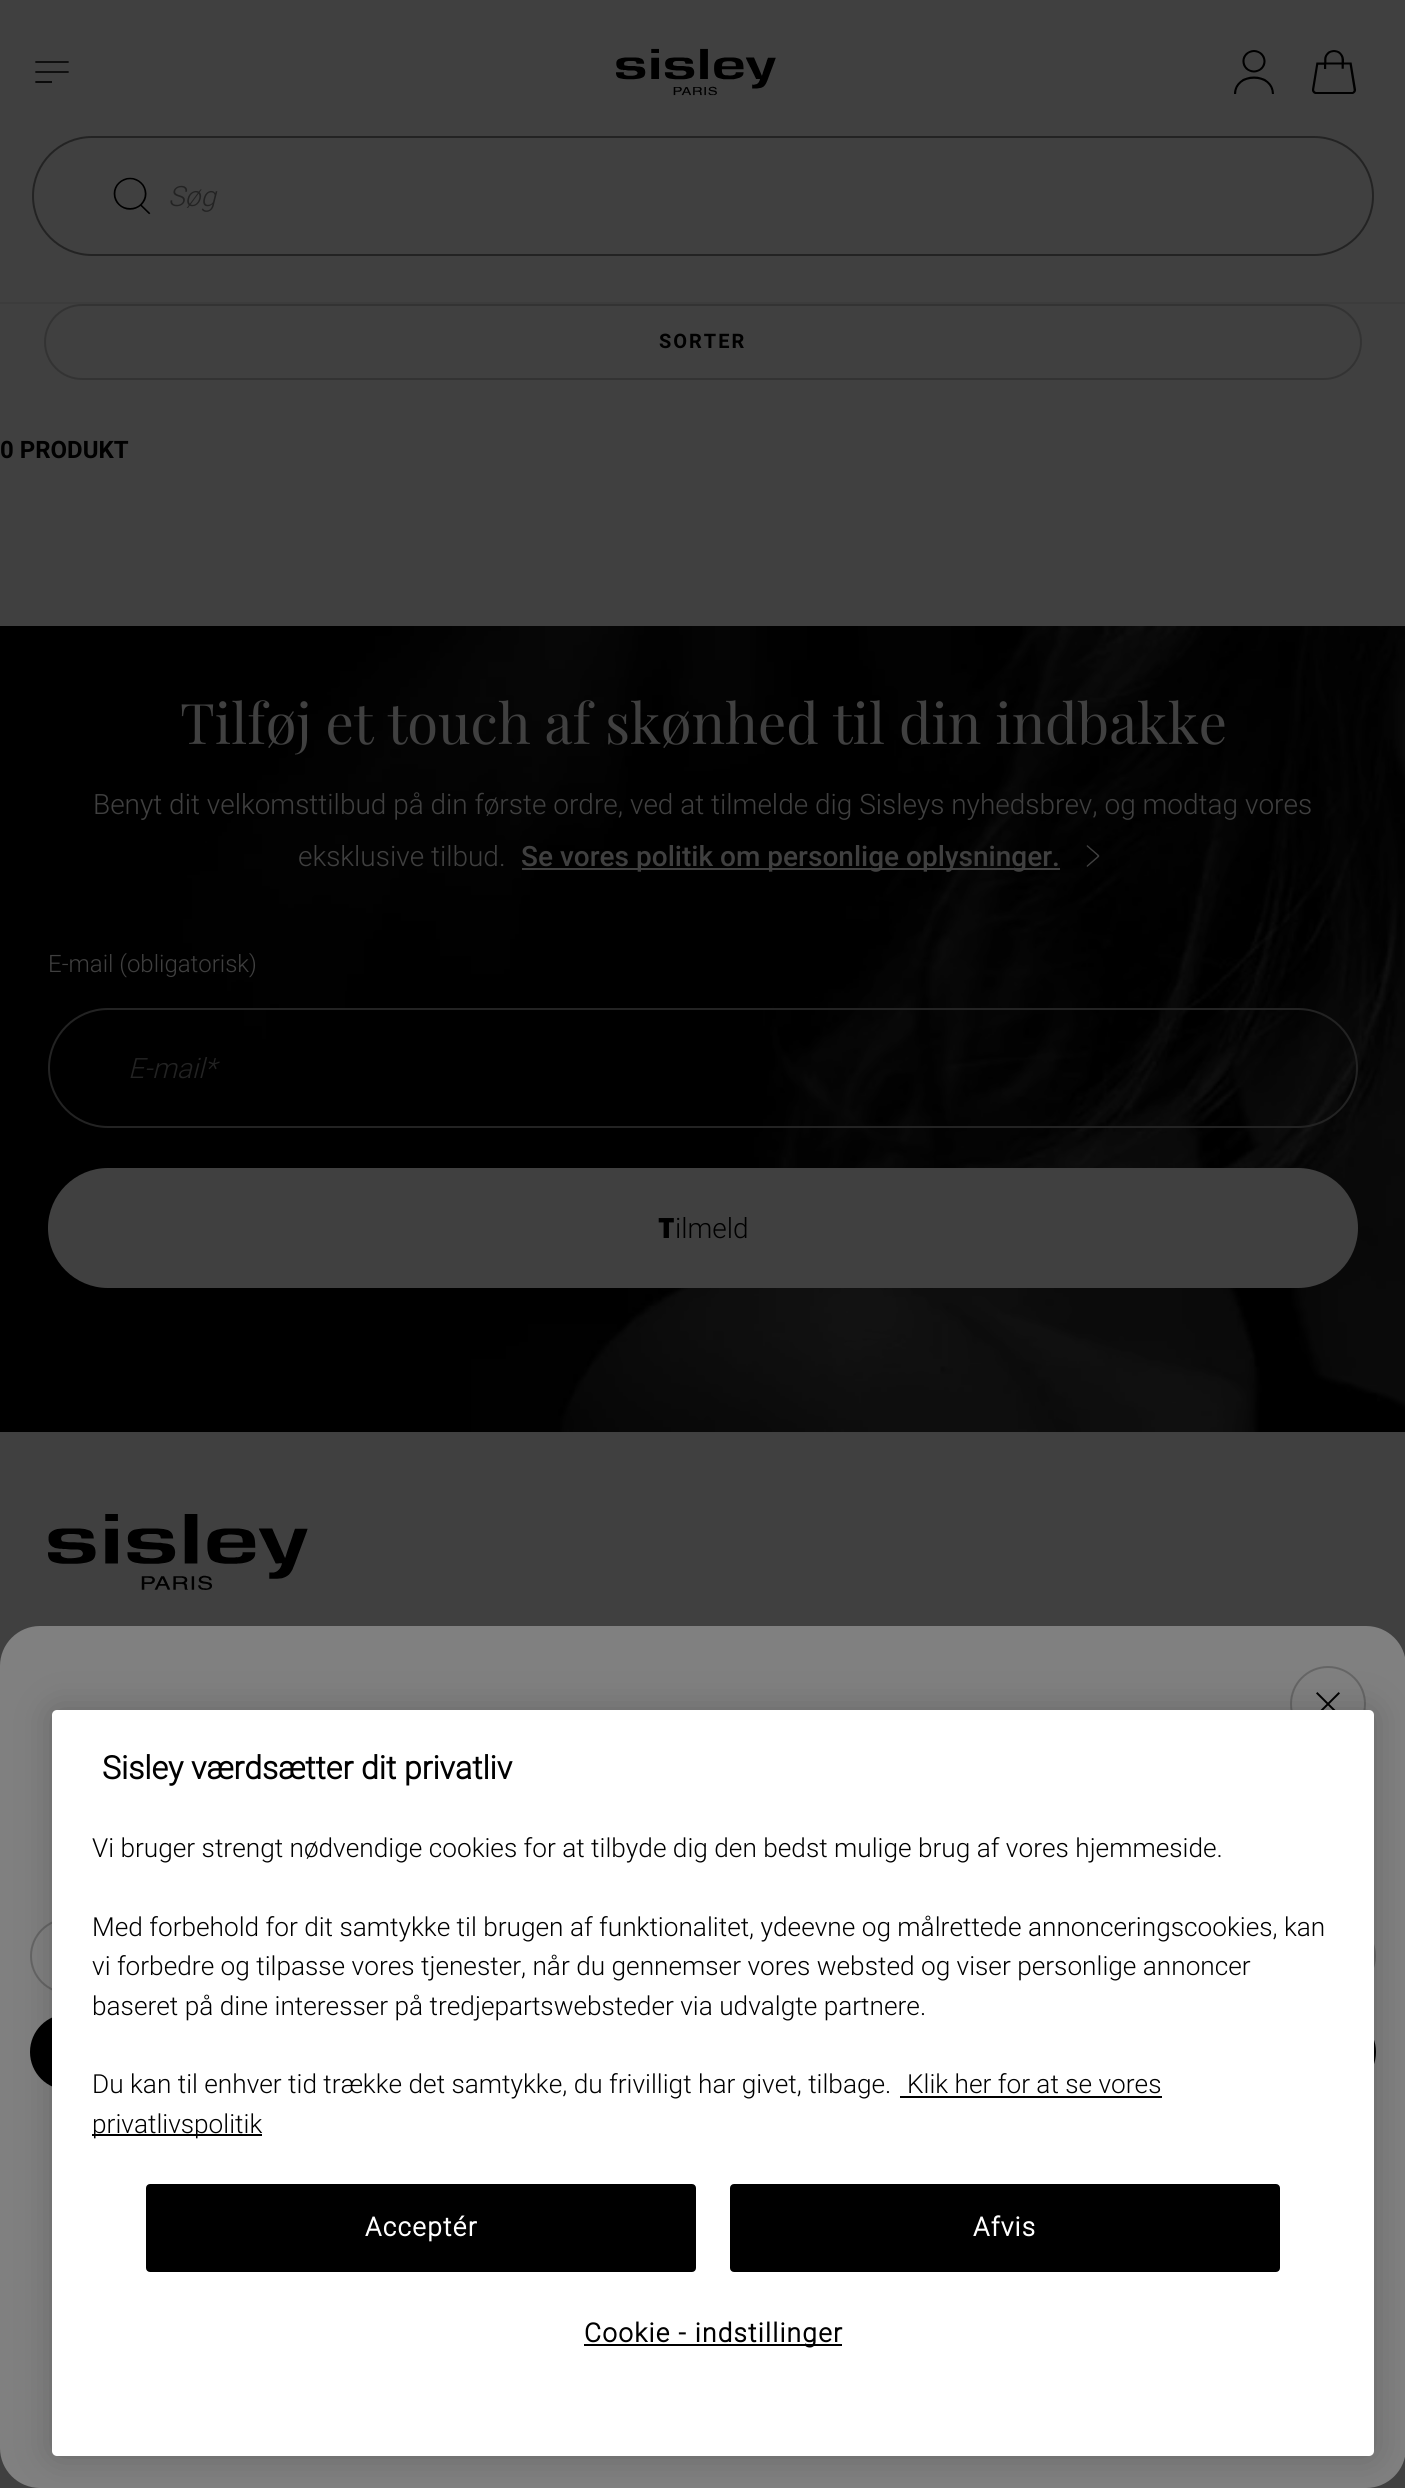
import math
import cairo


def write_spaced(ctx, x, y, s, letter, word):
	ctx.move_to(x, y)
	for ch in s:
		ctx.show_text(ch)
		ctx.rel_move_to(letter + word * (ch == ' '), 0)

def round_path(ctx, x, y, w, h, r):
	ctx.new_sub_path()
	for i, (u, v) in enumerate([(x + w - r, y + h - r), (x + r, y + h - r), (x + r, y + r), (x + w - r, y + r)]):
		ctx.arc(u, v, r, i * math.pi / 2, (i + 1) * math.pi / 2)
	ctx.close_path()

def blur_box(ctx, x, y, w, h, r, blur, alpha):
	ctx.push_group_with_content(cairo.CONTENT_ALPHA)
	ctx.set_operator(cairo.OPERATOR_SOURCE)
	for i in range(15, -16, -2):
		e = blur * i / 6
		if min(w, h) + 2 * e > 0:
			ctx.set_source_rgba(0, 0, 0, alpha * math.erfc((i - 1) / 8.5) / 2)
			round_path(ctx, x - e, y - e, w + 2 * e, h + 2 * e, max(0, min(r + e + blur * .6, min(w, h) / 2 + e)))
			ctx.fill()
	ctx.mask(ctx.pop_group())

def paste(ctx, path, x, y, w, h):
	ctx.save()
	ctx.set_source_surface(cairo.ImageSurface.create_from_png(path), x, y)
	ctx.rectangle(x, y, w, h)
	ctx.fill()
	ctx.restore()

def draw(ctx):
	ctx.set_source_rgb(0.251, 0.251, 0.251)
	ctx.paint()
	ctx.set_source_rgb(0.235, 0.235, 0.235)
	ctx.rectangle(0, 302, 1405, 2)
	ctx.fill()
	paste(ctx, 'media/1.png', 35, 61, 34, 22)
	paste(ctx, 'media/2.png', 616, 48, 160, 48)
	paste(ctx, 'media/3.png', 1234, 50, 40, 44)
	paste(ctx, 'media/4.png', 1312, 50, 44, 44)
	round_path(ctx, 33, 137, 1340, 118, 59)
	ctx.set_source_rgb(0.137, 0.137, 0.137)
	ctx.stroke()
	paste(ctx, 'media/5.png', 113, 177, 38, 38)
	ctx.select_font_face('Roboto Light', cairo.FONT_SLANT_ITALIC)
	ctx.set_font_size(28)
	ctx.move_to(168, 206)
	ctx.show_text('Søg')
	round_path(ctx, 45, 305, 1316, 74, 37)
	ctx.set_source_rgb(0.2, 0.2, 0.2)
	ctx.stroke()
	ctx.select_font_face('Roboto', cairo.FONT_SLANT_NORMAL, cairo.FONT_WEIGHT_BOLD)
	ctx.set_font_size(20)
	ctx.set_source_rgb(0, 0, 0)
	write_spaced(ctx, 659, 348, 'SORTER', 2, 0)
	ctx.set_font_size(24)
	ctx.move_to(0, 458)
	ctx.show_text('0 PRODUKT')
	ctx.rectangle(0, 626, 183, 806)
	ctx.fill()
	paste(ctx, 'media/6.png', 183, 626, 1222, 806)
	ctx.select_font_face('Playfair Display')
	ctx.set_font_size(56)
	ctx.set_source_rgb(0.251, 0.251, 0.251)
	ctx.move_to(180, 744)
	ctx.show_text('Tilføj et touch af skønhed til din indbakke')
	ctx.select_font_face('Roboto Light')
	ctx.set_font_size(28)
	ctx.move_to(93, 814)
	ctx.show_text('Benyt dit velkomsttilbud på din første ordre, ved at tilmelde dig Sisleys nyhedsbrev, og modtag vores')
	ctx.move_to(298, 866)
	ctx.show_text('eksklusive tilbud.')
	ctx.rectangle(522, 868, 538, 2)
	ctx.fill()
	ctx.select_font_face('Roboto Medium')
	ctx.move_to(521, 866)
	ctx.show_text('Se vores politik om personlige oplysninger.')
	paste(ctx, 'media/7.png', 1086, 845, 14, 22)
	ctx.select_font_face('Roboto Light')
	ctx.set_font_size(24)
	ctx.move_to(48, 972)
	ctx.show_text('E-mail (obligatorisk)')
	round_path(ctx, 49, 1009, 1308, 118, 59)
	ctx.set_source_rgb(0.137, 0.137, 0.137)
	ctx.stroke()
	ctx.select_font_face('Roboto Light', cairo.FONT_SLANT_ITALIC)
	ctx.set_font_size(28)
	ctx.move_to(128, 1078)
	ctx.show_text('E-mail*')
	ctx.set_source_rgb(0.251, 0.251, 0.251)
	round_path(ctx, 49, 1169, 1308, 118, 59)
	ctx.fill_preserve()
	ctx.stroke()
	ctx.select_font_face('Noto Sans Black')
	ctx.set_source_rgb(0, 0, 0)
	ctx.move_to(658, 1238)
	ctx.show_text('T')
	ctx.select_font_face('Roboto Light')
	ctx.move_to(675, 1238)
	ctx.show_text('ilmeld')
	paste(ctx, 'media/8.png', 48, 1514, 260, 76)
	ctx.set_source_rgb(0.502, 0.502, 0.502)
	round_path(ctx, 0, 1626, 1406, 862, 40)
	ctx.fill()
	ctx.arc(1328, 1704, 37, 0, 2 * math.pi)
	ctx.set_source_rgb(0.396, 0.396, 0.396)
	ctx.stroke()
	paste(ctx, 'media/9.png', 1316, 1692, 24, 18)
	round_path(ctx, 31, 1919, 1344, 74, 37)
	ctx.stroke()
	ctx.set_source_rgb(0, 0, 0)
	round_path(ctx, 31, 2015, 1344, 74, 37)
	ctx.fill_preserve()
	ctx.stroke()
	ctx.set_source_rgb(0, 0, 0)
	blur_box(ctx, 52, 1710, 1322, 746, 5, 18, 0.2)
	ctx.set_source_rgb(1, 1, 1)
	round_path(ctx, 52, 1710, 1322, 746, 5)
	ctx.fill()
	ctx.select_font_face('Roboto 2', cairo.FONT_SLANT_NORMAL, cairo.FONT_WEIGHT_BOLD)
	ctx.set_font_size(32)
	ctx.set_source_rgb(0, 0, 0)
	ctx.move_to(102, 1779)
	ctx.show_text('Sisley værdsætter dit privatliv')
	ctx.select_font_face('Roboto Light')
	ctx.set_font_size(26.25)
	for x, y, s in [
		(92, 1857, 'Vi bruger strengt nødvendige cookies for at tilbyde dig den bedst mulige brug af vores hjemmeside.'),
		(92, 1936, 'Med forbehold for dit samtykke til brugen af funktionalitet, ydeevne og målrettede annonceringscookies, kan'),
		(92, 1975, 'vi forbedre og tilpasse vores tjenester, når du gennemser vores websted og viser personlige annoncer'),
		(92, 2015, 'baseret på dine interesser på tredjepartswebsteder via udvalgte partnere.'),
		(92, 2093, 'Du kan til enhver tid trække det samtykke, du frivilligt har givet, tilbage.'),
		(907, 2093, 'Klik her for at se vores'),
	]:
		ctx.move_to(x, y)
		ctx.show_text(s)
	ctx.rectangle(900, 2096, 262, 2)
	ctx.fill()
	ctx.rectangle(92, 2134, 170, 2)
	ctx.fill()
	ctx.move_to(92, 2133)
	ctx.show_text('privatlivspolitik')
	round_path(ctx, 147, 2185, 548, 86, 3)
	ctx.fill_preserve()
	ctx.stroke()
	ctx.select_font_face('Roboto 2', cairo.FONT_SLANT_NORMAL, cairo.FONT_WEIGHT_BOLD)
	ctx.set_source_rgb(1, 1, 1)
	write_spaced(ctx, 365, 2236, 'Acceptér', 1.3, 0)
	ctx.set_source_rgb(0, 0, 0)
	round_path(ctx, 731, 2185, 548, 86, 3)
	ctx.fill_preserve()
	ctx.stroke()
	ctx.set_source_rgb(1, 1, 1)
	write_spaced(ctx, 973, 2236, 'Afvis', 1.3, 0)
	ctx.set_source_rgb(0, 0, 0)
	ctx.rectangle(584, 2344, 258, 2)
	ctx.fill()
	write_spaced(ctx, 584, 2342, 'Cookie - indstillinger', 1.3, 0)


surface = cairo.ImageSurface(cairo.FORMAT_RGB24, 1405, 2488)
ctx = cairo.Context(surface)
options = cairo.FontOptions()
options.set_hint_metrics(cairo.HINT_METRICS_OFF)
options.set_hint_style(cairo.HINT_STYLE_NONE)
ctx.set_font_options(options)
ctx.set_miter_limit(4)
draw(ctx)
surface.write_to_png('image.png')
